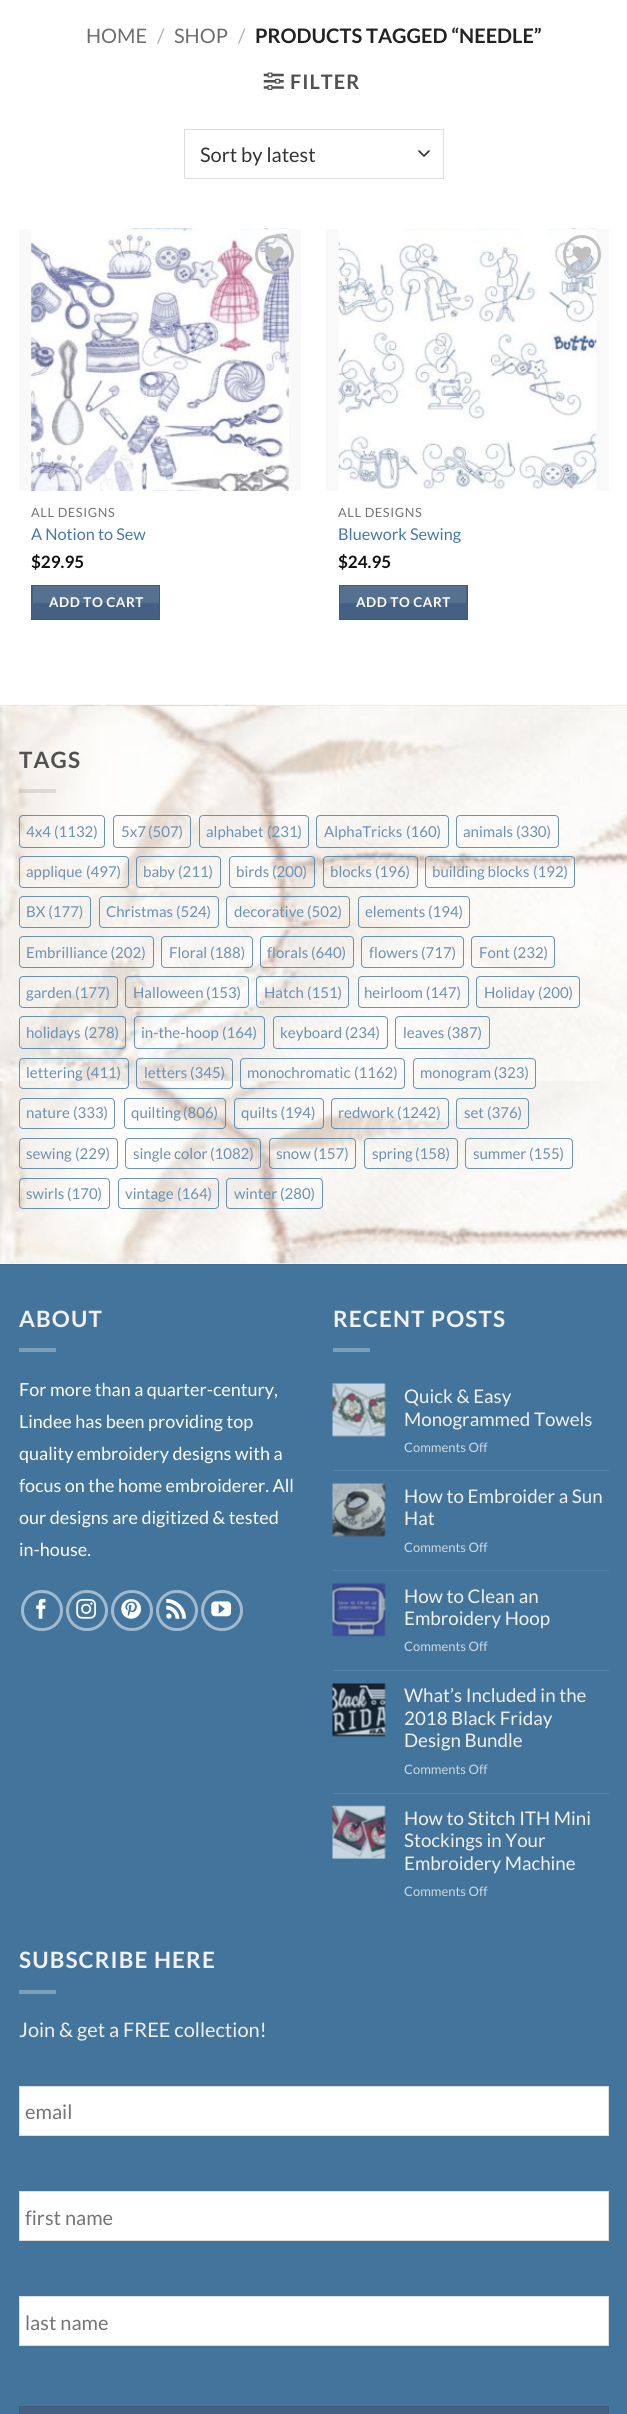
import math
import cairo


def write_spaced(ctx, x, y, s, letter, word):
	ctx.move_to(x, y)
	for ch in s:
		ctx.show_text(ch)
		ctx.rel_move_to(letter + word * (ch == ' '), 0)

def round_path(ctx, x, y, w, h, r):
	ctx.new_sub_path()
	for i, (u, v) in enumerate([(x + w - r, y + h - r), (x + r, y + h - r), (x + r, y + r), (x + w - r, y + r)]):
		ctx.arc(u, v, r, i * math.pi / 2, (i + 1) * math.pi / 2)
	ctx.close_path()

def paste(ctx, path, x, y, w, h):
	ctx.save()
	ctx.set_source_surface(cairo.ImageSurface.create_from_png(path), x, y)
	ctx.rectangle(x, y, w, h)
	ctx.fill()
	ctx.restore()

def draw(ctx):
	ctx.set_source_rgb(1, 1, 1)
	ctx.paint()
	ctx.select_font_face('Lato')
	ctx.set_font_size(20)
	ctx.set_source_rgb(0.431, 0.431, 0.431)
	ctx.move_to(86, 43)
	ctx.show_text('HOME')
	ctx.set_source_rgb(0.698, 0.698, 0.698)
	ctx.move_to(157, 43)
	ctx.show_text('/')
	ctx.set_source_rgb(0.431, 0.431, 0.431)
	ctx.move_to(174, 43)
	ctx.show_text('SHOP')
	ctx.set_source_rgb(0.698, 0.698, 0.698)
	ctx.move_to(238, 43)
	ctx.show_text('/')
	ctx.select_font_face('Lato', cairo.FONT_SLANT_NORMAL, cairo.FONT_WEIGHT_BOLD)
	ctx.set_source_rgb(0.133, 0.133, 0.133)
	ctx.move_to(255, 43)
	ctx.show_text('PRODUCTS TAGGED “NEEDLE”')
	paste(ctx, 'media/1.png', 263, 72, 21, 18)
	ctx.set_source_rgb(0.318, 0.318, 0.318)
	write_spaced(ctx, 290, 89, 'FILTER', 1, 0)
	ctx.new_path()
	ctx.move_to(419, 151)
	ctx.line_to(424, 156)
	ctx.line_to(429, 151)
	ctx.set_source_rgb(0.2, 0.2, 0.2)
	ctx.set_line_width(1.7)
	ctx.set_line_cap(cairo.LINE_CAP_ROUND)
	ctx.set_line_join(cairo.LINE_JOIN_ROUND)
	ctx.stroke()
	ctx.rectangle(184.5, 129.5, 259, 49)
	ctx.set_source_rgb(0.867, 0.867, 0.867)
	ctx.set_line_width(1)
	ctx.set_line_cap(cairo.LINE_CAP_BUTT)
	ctx.set_line_join(cairo.LINE_JOIN_MITER)
	ctx.stroke()
	ctx.select_font_face('Lato')
	ctx.set_source_rgb(0.2, 0.2, 0.2)
	ctx.move_to(200, 162)
	ctx.show_text('Sort by latest')
	ctx.set_source_rgb(0.973, 0.973, 0.973)
	ctx.rectangle(19, 229, 282, 262)
	ctx.fill()
	paste(ctx, 'media/2.png', 31, 228, 258, 263)
	ctx.arc(274.5, 254.5, 18, 0, 2 * math.pi)
	ctx.set_source_rgb(0.753, 0.753, 0.753)
	ctx.set_line_width(3)
	ctx.stroke()
	paste(ctx, 'media/3.png', 265, 246, 19, 17)
	ctx.set_font_size(12.75)
	ctx.set_source_rgb(0.455, 0.455, 0.455)
	write_spaced(ctx, 31, 517, 'ALL DESIGNS', 0.6, 0)
	ctx.set_font_size(16.25)
	ctx.set_source_rgb(0.278, 0.475, 0.655)
	ctx.move_to(31, 540)
	ctx.show_text('A Notion to Sew')
	ctx.select_font_face('Lato', cairo.FONT_SLANT_NORMAL, cairo.FONT_WEIGHT_BOLD)
	ctx.set_font_size(17)
	ctx.set_source_rgb(0.067, 0.067, 0.067)
	ctx.move_to(31, 568)
	ctx.show_text('$29.95')
	ctx.set_source_rgb(0.267, 0.376, 0.518)
	ctx.rectangle(31.5, 585.5, 128, 34)
	ctx.fill_preserve()
	ctx.set_source_rgb(0.255, 0.357, 0.49)
	ctx.set_line_width(1)
	ctx.stroke()
	ctx.set_source_rgba(1, 1, 1, 0.1)
	ctx.rectangle(33, 586, 126, 17)
	ctx.fill()
	ctx.set_font_size(13.5)
	ctx.set_source_rgb(1, 1, 1)
	write_spaced(ctx, 49, 607, 'ADD TO CART', 0.5, 0)
	ctx.set_source_rgb(0.973, 0.973, 0.973)
	ctx.rectangle(326, 229, 283, 262)
	ctx.fill()
	paste(ctx, 'media/4.png', 338, 228, 259, 263)
	round_path(ctx, 564.5, 236.5, 35, 36, 17.5)
	ctx.set_source_rgb(0.753, 0.753, 0.753)
	ctx.set_line_width(3)
	ctx.stroke()
	paste(ctx, 'media/5.png', 572, 246, 20, 17)
	ctx.select_font_face('Lato')
	ctx.set_font_size(12.75)
	ctx.set_source_rgb(0.455, 0.455, 0.455)
	write_spaced(ctx, 338, 517, 'ALL DESIGNS', 0.6, 0)
	ctx.set_font_size(16.25)
	ctx.set_source_rgb(0.278, 0.475, 0.655)
	ctx.move_to(338, 540)
	ctx.show_text('Bluework Sewing')
	ctx.select_font_face('Lato', cairo.FONT_SLANT_NORMAL, cairo.FONT_WEIGHT_BOLD)
	ctx.set_font_size(17)
	ctx.set_source_rgb(0.067, 0.067, 0.067)
	ctx.move_to(338, 568)
	ctx.show_text('$24.95')
	ctx.set_source_rgb(0.267, 0.376, 0.518)
	ctx.rectangle(339.5, 585.5, 128, 34)
	ctx.fill_preserve()
	ctx.set_source_rgb(0.255, 0.357, 0.49)
	ctx.set_line_width(1)
	ctx.stroke()
	ctx.set_source_rgba(1, 1, 1, 0.1)
	ctx.rectangle(340, 586, 126, 17)
	ctx.fill()
	ctx.set_font_size(13.5)
	ctx.set_source_rgb(1, 1, 1)
	write_spaced(ctx, 356, 607, 'ADD TO CART', 0.5, 0)
	paste(ctx, 'media/6.png', 0, 704, 627, 560)
	ctx.set_source_rgba(0, 0, 0, 0.05)
	ctx.rectangle(0, 705, 627, 1)
	ctx.fill()
	ctx.set_font_size(22.5)
	ctx.set_source_rgb(0.318, 0.318, 0.318)
	write_spaced(ctx, 19, 768, 'TAGS', 1.1, 0)
	ctx.set_source_rgba(0, 0, 0, 0.1)
	ctx.rectangle(19, 789, 37, 4)
	ctx.fill()
	round_path(ctx, 19.5, 815.5, 85, 32, 3.5)
	ctx.set_source_rgba(0.278, 0.475, 0.655, 0.8)
	ctx.stroke()
	ctx.select_font_face('Lato')
	ctx.set_font_size(15)
	ctx.set_source_rgb(0.416, 0.569, 0.71)
	ctx.move_to(26, 837)
	ctx.show_text('4x4')
	ctx.move_to(54, 837)
	ctx.show_text('(1132)')
	round_path(ctx, 113.5, 815.5, 77, 32, 3.5)
	ctx.set_source_rgba(0.278, 0.475, 0.655, 0.8)
	ctx.stroke()
	ctx.set_source_rgb(0.416, 0.569, 0.71)
	ctx.move_to(121, 837)
	ctx.show_text('5x7')
	ctx.move_to(148, 837)
	ctx.show_text('(507)')
	round_path(ctx, 199.5, 815.5, 109, 32, 3.5)
	ctx.set_source_rgba(0.278, 0.475, 0.655, 0.8)
	ctx.stroke()
	ctx.set_source_rgb(0.416, 0.569, 0.71)
	ctx.move_to(206, 837)
	ctx.show_text('alphabet')
	ctx.move_to(267, 837)
	ctx.show_text('(231)')
	round_path(ctx, 316.5, 815.5, 132, 32, 3.5)
	ctx.set_source_rgba(0.278, 0.475, 0.655, 0.8)
	ctx.stroke()
	ctx.set_source_rgb(0.416, 0.569, 0.71)
	ctx.move_to(324, 837)
	ctx.show_text('AlphaTricks')
	ctx.move_to(406, 837)
	ctx.show_text('(160)')
	round_path(ctx, 456.5, 815.5, 102, 32, 3.5)
	ctx.set_source_rgba(0.278, 0.475, 0.655, 0.8)
	ctx.stroke()
	ctx.set_source_rgb(0.416, 0.569, 0.71)
	ctx.move_to(463, 837)
	ctx.show_text('animals (330)')
	round_path(ctx, 19.5, 856.5, 109, 31, 3.5)
	ctx.set_source_rgba(0.278, 0.475, 0.655, 0.8)
	ctx.stroke()
	ctx.set_source_rgb(0.416, 0.569, 0.71)
	ctx.move_to(26, 877)
	ctx.show_text('applique')
	ctx.move_to(86, 877)
	ctx.show_text('(497)')
	round_path(ctx, 136.5, 856.5, 84, 31, 3.5)
	ctx.set_source_rgba(0.278, 0.475, 0.655, 0.8)
	ctx.stroke()
	ctx.set_source_rgb(0.416, 0.569, 0.71)
	ctx.move_to(143, 877)
	ctx.show_text('baby')
	ctx.move_to(178, 877)
	ctx.show_text('(211)')
	round_path(ctx, 229.5, 856.5, 85, 31, 3.5)
	ctx.set_source_rgba(0.278, 0.475, 0.655, 0.8)
	ctx.stroke()
	ctx.set_source_rgb(0.416, 0.569, 0.71)
	ctx.move_to(236, 877)
	ctx.show_text('birds')
	ctx.move_to(272, 877)
	ctx.show_text('(200)')
	round_path(ctx, 323.5, 856.5, 94, 31, 3.5)
	ctx.set_source_rgba(0.278, 0.475, 0.655, 0.8)
	ctx.stroke()
	ctx.set_source_rgb(0.416, 0.569, 0.71)
	ctx.move_to(330, 877)
	ctx.show_text('blocks')
	ctx.move_to(375, 877)
	ctx.show_text('(196)')
	round_path(ctx, 425.5, 856.5, 149, 31, 3.5)
	ctx.set_source_rgba(0.278, 0.475, 0.655, 0.8)
	ctx.stroke()
	ctx.set_source_rgb(0.416, 0.569, 0.71)
	ctx.move_to(432, 877)
	ctx.show_text('building blocks')
	ctx.move_to(533, 877)
	ctx.show_text('(192)')
	round_path(ctx, 19.5, 896.5, 71, 31, 3.5)
	ctx.set_source_rgba(0.278, 0.475, 0.655, 0.8)
	ctx.stroke()
	ctx.set_source_rgb(0.416, 0.569, 0.71)
	ctx.move_to(26, 917)
	ctx.show_text('BX (177)')
	round_path(ctx, 99.5, 896.5, 119, 31, 3.5)
	ctx.set_source_rgba(0.278, 0.475, 0.655, 0.8)
	ctx.stroke()
	ctx.set_source_rgb(0.416, 0.569, 0.71)
	ctx.move_to(106, 917)
	ctx.show_text('Christmas')
	ctx.move_to(176, 917)
	ctx.show_text('(524)')
	round_path(ctx, 226.5, 896.5, 123, 31, 3.5)
	ctx.set_source_rgba(0.278, 0.475, 0.655, 0.8)
	ctx.stroke()
	ctx.set_source_rgb(0.416, 0.569, 0.71)
	ctx.move_to(234, 917)
	ctx.show_text('decorative')
	ctx.move_to(307, 917)
	ctx.show_text('(502)')
	round_path(ctx, 358.5, 896.5, 111, 31, 3.5)
	ctx.set_source_rgba(0.278, 0.475, 0.655, 0.8)
	ctx.stroke()
	ctx.set_source_rgb(0.416, 0.569, 0.71)
	ctx.move_to(365, 917)
	ctx.show_text('elements')
	ctx.move_to(428, 917)
	ctx.show_text('(194)')
	round_path(ctx, 19.5, 936.5, 134, 31, 3.5)
	ctx.set_source_rgba(0.278, 0.475, 0.655, 0.8)
	ctx.stroke()
	ctx.set_source_rgb(0.416, 0.569, 0.71)
	ctx.move_to(26, 958)
	ctx.show_text('Embrilliance (202)')
	round_path(ctx, 161.5, 936.5, 91, 31, 3.5)
	ctx.set_source_rgba(0.278, 0.475, 0.655, 0.8)
	ctx.stroke()
	ctx.set_source_rgb(0.416, 0.569, 0.71)
	ctx.move_to(169, 958)
	ctx.show_text('Floral (188)')
	round_path(ctx, 260.5, 936.5, 93, 31, 3.5)
	ctx.set_source_rgba(0.278, 0.475, 0.655, 0.8)
	ctx.stroke()
	ctx.set_source_rgb(0.416, 0.569, 0.71)
	ctx.move_to(267, 958)
	ctx.show_text('florals')
	ctx.move_to(311, 958)
	ctx.show_text('(640)')
	round_path(ctx, 361.5, 936.5, 102, 31, 3.5)
	ctx.set_source_rgba(0.278, 0.475, 0.655, 0.8)
	ctx.stroke()
	ctx.set_source_rgb(0.416, 0.569, 0.71)
	ctx.move_to(369, 958)
	ctx.show_text('flowers')
	ctx.move_to(421, 958)
	ctx.show_text('(717)')
	round_path(ctx, 471.5, 936.5, 83, 31, 3.5)
	ctx.set_source_rgba(0.278, 0.475, 0.655, 0.8)
	ctx.stroke()
	ctx.set_source_rgb(0.416, 0.569, 0.71)
	ctx.move_to(479, 958)
	ctx.show_text('Font')
	ctx.move_to(513, 958)
	ctx.show_text('(232)')
	round_path(ctx, 19.5, 976.5, 98, 31, 3.5)
	ctx.set_source_rgba(0.278, 0.475, 0.655, 0.8)
	ctx.stroke()
	ctx.set_source_rgb(0.416, 0.569, 0.71)
	ctx.move_to(26, 998)
	ctx.show_text('garden')
	ctx.move_to(75, 998)
	ctx.show_text('(177)')
	round_path(ctx, 125.5, 976.5, 123, 31, 3.5)
	ctx.set_source_rgba(0.278, 0.475, 0.655, 0.8)
	ctx.stroke()
	ctx.set_source_rgb(0.416, 0.569, 0.71)
	ctx.move_to(133, 998)
	ctx.show_text('Halloween')
	ctx.move_to(206, 998)
	ctx.show_text('(153)')
	round_path(ctx, 256.5, 976.5, 92, 31, 3.5)
	ctx.set_source_rgba(0.278, 0.475, 0.655, 0.8)
	ctx.stroke()
	ctx.set_source_rgb(0.416, 0.569, 0.71)
	ctx.move_to(264, 998)
	ctx.show_text('Hatch')
	ctx.move_to(307, 998)
	ctx.show_text('(151)')
	round_path(ctx, 358.5, 976.5, 110, 31, 3.5)
	ctx.set_source_rgba(0.278, 0.475, 0.655, 0.8)
	ctx.stroke()
	ctx.set_source_rgb(0.416, 0.569, 0.71)
	ctx.move_to(364, 998)
	ctx.show_text('heirloom (147)')
	round_path(ctx, 476.5, 976.5, 103, 31, 3.5)
	ctx.set_source_rgba(0.278, 0.475, 0.655, 0.8)
	ctx.stroke()
	ctx.set_source_rgb(0.416, 0.569, 0.71)
	ctx.move_to(484, 998)
	ctx.show_text('Holiday')
	ctx.move_to(538, 998)
	ctx.show_text('(200)')
	round_path(ctx, 19.5, 1016.5, 106, 32, 3.5)
	ctx.set_source_rgba(0.278, 0.475, 0.655, 0.8)
	ctx.stroke()
	ctx.set_source_rgb(0.416, 0.569, 0.71)
	ctx.move_to(26, 1038)
	ctx.show_text('holidays')
	ctx.move_to(84, 1038)
	ctx.show_text('(278)')
	round_path(ctx, 134.5, 1016.5, 130, 32, 3.5)
	ctx.set_source_rgba(0.278, 0.475, 0.655, 0.8)
	ctx.stroke()
	ctx.set_source_rgb(0.416, 0.569, 0.71)
	ctx.move_to(141, 1038)
	ctx.show_text('in-the-hoop')
	ctx.move_to(222, 1038)
	ctx.show_text('(164)')
	round_path(ctx, 273.5, 1016.5, 114, 32, 3.5)
	ctx.set_source_rgba(0.278, 0.475, 0.655, 0.8)
	ctx.stroke()
	ctx.set_source_rgb(0.416, 0.569, 0.71)
	ctx.move_to(280, 1038)
	ctx.show_text('keyboard')
	ctx.move_to(345, 1038)
	ctx.show_text('(234)')
	round_path(ctx, 395.5, 1016.5, 94, 32, 3.5)
	ctx.set_source_rgba(0.278, 0.475, 0.655, 0.8)
	ctx.stroke()
	ctx.set_source_rgb(0.416, 0.569, 0.71)
	ctx.move_to(403, 1038)
	ctx.show_text('leaves')
	ctx.move_to(447, 1038)
	ctx.show_text('(387)')
	round_path(ctx, 19.5, 1058.5, 109, 30, 3.5)
	ctx.set_source_rgba(0.278, 0.475, 0.655, 0.8)
	ctx.stroke()
	ctx.set_source_rgb(0.416, 0.569, 0.71)
	ctx.move_to(26, 1078)
	ctx.show_text('lettering')
	ctx.move_to(86, 1078)
	ctx.show_text('(411)')
	round_path(ctx, 136.5, 1058.5, 96, 30, 3.5)
	ctx.set_source_rgba(0.278, 0.475, 0.655, 0.8)
	ctx.stroke()
	ctx.set_source_rgb(0.416, 0.569, 0.71)
	ctx.move_to(144, 1078)
	ctx.show_text('letters')
	ctx.move_to(190, 1078)
	ctx.show_text('(345)')
	round_path(ctx, 240.5, 1058.5, 164, 30, 3.5)
	ctx.set_source_rgba(0.278, 0.475, 0.655, 0.8)
	ctx.stroke()
	ctx.set_source_rgb(0.416, 0.569, 0.71)
	ctx.move_to(247, 1078)
	ctx.show_text('monochromatic')
	ctx.move_to(354, 1078)
	ctx.show_text('(1162)')
	round_path(ctx, 413.5, 1058.5, 122, 30, 3.5)
	ctx.set_source_rgba(0.278, 0.475, 0.655, 0.8)
	ctx.stroke()
	ctx.set_source_rgb(0.416, 0.569, 0.71)
	ctx.move_to(420, 1078)
	ctx.show_text('monogram (323)')
	round_path(ctx, 19.5, 1098.5, 95, 30, 3.5)
	ctx.set_source_rgba(0.278, 0.475, 0.655, 0.8)
	ctx.stroke()
	ctx.set_source_rgb(0.416, 0.569, 0.71)
	ctx.move_to(26, 1118)
	ctx.show_text('nature')
	ctx.move_to(73, 1118)
	ctx.show_text('(333)')
	round_path(ctx, 124.5, 1098.5, 101, 30, 3.5)
	ctx.set_source_rgba(0.278, 0.475, 0.655, 0.8)
	ctx.stroke()
	ctx.set_source_rgb(0.416, 0.569, 0.71)
	ctx.move_to(131, 1118)
	ctx.show_text('quilting')
	ctx.move_to(183, 1118)
	ctx.show_text('(806)')
	round_path(ctx, 234.5, 1098.5, 89, 30, 3.5)
	ctx.set_source_rgba(0.278, 0.475, 0.655, 0.8)
	ctx.stroke()
	ctx.set_source_rgb(0.416, 0.569, 0.71)
	ctx.move_to(241, 1118)
	ctx.show_text('quilts (194)')
	round_path(ctx, 331.5, 1098.5, 117, 30, 3.5)
	ctx.set_source_rgba(0.278, 0.475, 0.655, 0.8)
	ctx.stroke()
	ctx.set_source_rgb(0.416, 0.569, 0.71)
	ctx.move_to(338, 1118)
	ctx.show_text('redwork')
	ctx.move_to(397, 1118)
	ctx.show_text('(1242)')
	round_path(ctx, 456.5, 1098.5, 72, 30, 3.5)
	ctx.set_source_rgba(0.278, 0.475, 0.655, 0.8)
	ctx.stroke()
	ctx.set_source_rgb(0.416, 0.569, 0.71)
	ctx.move_to(464, 1118)
	ctx.show_text('set')
	ctx.move_to(487, 1118)
	ctx.show_text('(376)')
	round_path(ctx, 19.5, 1138.5, 98, 30, 3.5)
	ctx.set_source_rgba(0.278, 0.475, 0.655, 0.8)
	ctx.stroke()
	ctx.set_source_rgb(0.416, 0.569, 0.71)
	ctx.move_to(26, 1159)
	ctx.show_text('sewing')
	ctx.move_to(75, 1159)
	ctx.show_text('(229)')
	round_path(ctx, 125.5, 1138.5, 135, 30, 3.5)
	ctx.set_source_rgba(0.278, 0.475, 0.655, 0.8)
	ctx.stroke()
	ctx.set_source_rgb(0.416, 0.569, 0.71)
	ctx.move_to(133, 1159)
	ctx.show_text('single color')
	ctx.move_to(210, 1159)
	ctx.show_text('(1082)')
	round_path(ctx, 269.5, 1138.5, 86, 30, 3.5)
	ctx.set_source_rgba(0.278, 0.475, 0.655, 0.8)
	ctx.stroke()
	ctx.set_source_rgb(0.416, 0.569, 0.71)
	ctx.move_to(276, 1159)
	ctx.show_text('snow (157)')
	round_path(ctx, 364.5, 1138.5, 93, 30, 3.5)
	ctx.set_source_rgba(0.278, 0.475, 0.655, 0.8)
	ctx.stroke()
	ctx.set_source_rgb(0.416, 0.569, 0.71)
	ctx.move_to(372, 1159)
	ctx.show_text('spring')
	ctx.move_to(415, 1159)
	ctx.show_text('(158)')
	round_path(ctx, 465.5, 1138.5, 107, 30, 3.5)
	ctx.set_source_rgba(0.278, 0.475, 0.655, 0.8)
	ctx.stroke()
	ctx.set_source_rgb(0.416, 0.569, 0.71)
	ctx.move_to(473, 1159)
	ctx.show_text('summer')
	ctx.move_to(529, 1159)
	ctx.show_text('(155)')
	round_path(ctx, 19.5, 1178.5, 90, 30, 3.5)
	ctx.set_source_rgba(0.278, 0.475, 0.655, 0.8)
	ctx.stroke()
	ctx.set_source_rgb(0.416, 0.569, 0.71)
	ctx.move_to(26, 1199)
	ctx.show_text('swirls')
	ctx.move_to(67, 1199)
	ctx.show_text('(170)')
	round_path(ctx, 118.5, 1178.5, 100, 30, 3.5)
	ctx.set_source_rgba(0.278, 0.475, 0.655, 0.8)
	ctx.stroke()
	ctx.set_source_rgb(0.416, 0.569, 0.71)
	ctx.move_to(125, 1199)
	ctx.show_text('vintage')
	ctx.move_to(177, 1199)
	ctx.show_text('(164)')
	round_path(ctx, 226.5, 1178.5, 96, 30, 3.5)
	ctx.set_source_rgba(0.278, 0.475, 0.655, 0.8)
	ctx.stroke()
	ctx.set_source_rgb(0.416, 0.569, 0.71)
	ctx.move_to(234, 1199)
	ctx.show_text('winter')
	ctx.move_to(280, 1199)
	ctx.show_text('(280)')
	ctx.set_source_rgb(0.263, 0.455, 0.612)
	ctx.rectangle(0, 1265, 627, 1149)
	ctx.fill()
	ctx.set_source_rgb(0.251, 0.431, 0.58)
	ctx.rectangle(0, 1264, 627, 1)
	ctx.fill()
	ctx.select_font_face('Lato', cairo.FONT_SLANT_NORMAL, cairo.FONT_WEIGHT_BOLD)
	ctx.set_font_size(22.5)
	ctx.set_source_rgb(0.945, 0.945, 0.945)
	write_spaced(ctx, 19, 1327, 'ABOUT', 1.1, 0)
	ctx.set_source_rgb(0.482, 0.62, 0.729)
	ctx.rectangle(19, 1348, 37, 4)
	ctx.fill()
	ctx.select_font_face('Lato')
	ctx.set_font_size(18)
	ctx.set_source_rgb(1, 1, 1)
	for x, y, s in [
		(19, 1396, 'For more than a quarter-century,'),
		(19, 1428, 'Lindee has been providing top'),
		(19, 1460, 'quality embroidery designs with a'),
		(19, 1492, 'focus on the home embroiderer. All'),
		(19, 1524, 'our designs are digitized & tested'),
		(19, 1556, 'in-house.'),
	]:
		ctx.move_to(x, y)
		ctx.show_text(s)
	round_path(ctx, 22.5, 1591.5, 39, 38, 19)
	ctx.set_source_rgb(0.631, 0.729, 0.808)
	ctx.set_line_width(3)
	ctx.stroke()
	paste(ctx, 'media/7.png', 36, 1598, 10, 21)
	round_path(ctx, 67.5, 1591.5, 39, 38, 19)
	ctx.stroke()
	paste(ctx, 'media/8.png', 76, 1598, 20, 21)
	round_path(ctx, 112.5, 1591.5, 39, 38, 19)
	ctx.stroke()
	paste(ctx, 'media/9.png', 121, 1598, 20, 21)
	round_path(ctx, 157.5, 1591.5, 39, 38, 19)
	ctx.stroke()
	paste(ctx, 'media/10.png', 166, 1598, 20, 21)
	round_path(ctx, 202.5, 1591.5, 39, 38, 19)
	ctx.stroke()
	paste(ctx, 'media/11.png', 211, 1601, 21, 16)
	ctx.select_font_face('Lato', cairo.FONT_SLANT_NORMAL, cairo.FONT_WEIGHT_BOLD)
	ctx.set_font_size(22.5)
	ctx.set_source_rgb(0.945, 0.945, 0.945)
	write_spaced(ctx, 333, 1327, 'RECENT POSTS', 1.1, 0)
	ctx.set_source_rgb(0.482, 0.62, 0.729)
	ctx.rectangle(333, 1348, 37, 4)
	ctx.fill()
	paste(ctx, 'media/12.png', 332, 1383, 54, 54)
	ctx.select_font_face('Lato')
	ctx.set_font_size(18.75)
	ctx.set_source_rgb(0.945, 0.945, 0.945)
	ctx.move_to(404, 1403)
	ctx.show_text('Quick & Easy')
	ctx.move_to(404, 1426)
	ctx.show_text('Monogrammed Towels')
	ctx.set_font_size(13)
	ctx.set_source_rgb(0.808, 0.847, 0.878)
	ctx.move_to(404, 1452)
	ctx.show_text('Comments Off')
	ctx.set_source_rgb(0.322, 0.498, 0.643)
	ctx.rectangle(333, 1470, 276, 1)
	ctx.fill()
	paste(ctx, 'media/13.png', 332, 1483, 54, 54)
	ctx.set_font_size(18.75)
	ctx.set_source_rgb(0.945, 0.945, 0.945)
	ctx.move_to(404, 1503)
	ctx.show_text('How to Embroider a Sun')
	ctx.move_to(404, 1525)
	ctx.show_text('Hat')
	ctx.set_font_size(13)
	ctx.set_source_rgb(0.808, 0.847, 0.878)
	ctx.move_to(404, 1552)
	ctx.show_text('Comments Off')
	ctx.set_source_rgb(0.322, 0.498, 0.643)
	ctx.rectangle(333, 1570, 276, 1)
	ctx.fill()
	paste(ctx, 'media/14.png', 332, 1583, 54, 54)
	ctx.set_font_size(18.75)
	ctx.set_source_rgb(0.945, 0.945, 0.945)
	ctx.move_to(404, 1603)
	ctx.show_text('How to Clean an')
	ctx.move_to(404, 1625)
	ctx.show_text('Embroidery Hoop')
	ctx.set_font_size(13)
	ctx.set_source_rgb(0.808, 0.847, 0.878)
	ctx.move_to(404, 1651)
	ctx.show_text('Comments Off')
	ctx.set_source_rgb(0.322, 0.498, 0.643)
	ctx.rectangle(333, 1670, 276, 1)
	ctx.fill()
	paste(ctx, 'media/15.png', 332, 1683, 54, 54)
	ctx.set_font_size(18.75)
	ctx.set_source_rgb(0.945, 0.945, 0.945)
	for x, y, s in [
		(404, 1702, 'What’s Included in the'),
		(404, 1725, '2018 Black Friday'),
		(404, 1747, 'Design Bundle'),
	]:
		ctx.move_to(x, y)
		ctx.show_text(s)
	ctx.set_font_size(13)
	ctx.set_source_rgb(0.808, 0.847, 0.878)
	ctx.move_to(404, 1774)
	ctx.show_text('Comments Off')
	ctx.set_source_rgb(0.322, 0.498, 0.643)
	ctx.rectangle(333, 1793, 276, 1)
	ctx.fill()
	paste(ctx, 'media/16.png', 332, 1805, 54, 54)
	ctx.set_font_size(18.75)
	ctx.set_source_rgb(0.945, 0.945, 0.945)
	for x, y, s in [
		(404, 1825, 'How to Stitch ITH Mini'),
		(404, 1847, 'Stockings in Your'),
		(404, 1870, 'Embroidery Machine'),
	]:
		ctx.move_to(x, y)
		ctx.show_text(s)
	ctx.set_font_size(13)
	ctx.set_source_rgb(0.808, 0.847, 0.878)
	ctx.move_to(404, 1896)
	ctx.show_text('Comments Off')
	ctx.select_font_face('Lato', cairo.FONT_SLANT_NORMAL, cairo.FONT_WEIGHT_BOLD)
	ctx.set_font_size(22.5)
	ctx.set_source_rgb(0.945, 0.945, 0.945)
	write_spaced(ctx, 19, 1968, 'SUBSCRIBE HERE', 1.1, 0)
	ctx.set_source_rgb(0.482, 0.62, 0.729)
	ctx.rectangle(19, 1990, 37, 4)
	ctx.fill()
	ctx.select_font_face('Lato')
	ctx.set_font_size(20)
	ctx.set_source_rgb(0.945, 0.945, 0.945)
	ctx.move_to(19, 2037)
	ctx.show_text('Join & get a FREE collection!')
	ctx.set_source_rgb(1, 1, 1)
	ctx.rectangle(19.5, 2086.5, 589, 49)
	ctx.fill_preserve()
	ctx.set_source_rgb(0.867, 0.867, 0.867)
	ctx.set_line_width(1)
	ctx.stroke()
	ctx.set_source_rgb(0.455, 0.455, 0.455)
	ctx.move_to(25, 2119)
	ctx.show_text('email')
	ctx.set_source_rgb(1, 1, 1)
	ctx.rectangle(19.5, 2191.5, 589, 49)
	ctx.fill_preserve()
	ctx.set_source_rgb(0.867, 0.867, 0.867)
	ctx.stroke()
	ctx.set_source_rgb(0.455, 0.455, 0.455)
	ctx.move_to(25, 2225)
	ctx.show_text('first name')
	ctx.set_source_rgb(1, 1, 1)
	ctx.rectangle(19.5, 2296.5, 589, 49)
	ctx.fill_preserve()
	ctx.set_source_rgb(0.867, 0.867, 0.867)
	ctx.stroke()
	ctx.set_source_rgb(0.455, 0.455, 0.455)
	ctx.move_to(25, 2330)
	ctx.show_text('last name')
	ctx.set_source_rgb(0.267, 0.376, 0.518)
	ctx.rectangle(19.5, 2406.5, 589, 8)
	ctx.fill_preserve()
	ctx.set_source_rgb(0.255, 0.357, 0.49)
	ctx.stroke()


surface = cairo.ImageSurface(cairo.FORMAT_RGB24, 627, 2414)
ctx = cairo.Context(surface)
options = cairo.FontOptions()
options.set_hint_metrics(cairo.HINT_METRICS_OFF)
options.set_hint_style(cairo.HINT_STYLE_NONE)
ctx.set_font_options(options)
ctx.set_miter_limit(4)
draw(ctx)
surface.write_to_png('image.png')
